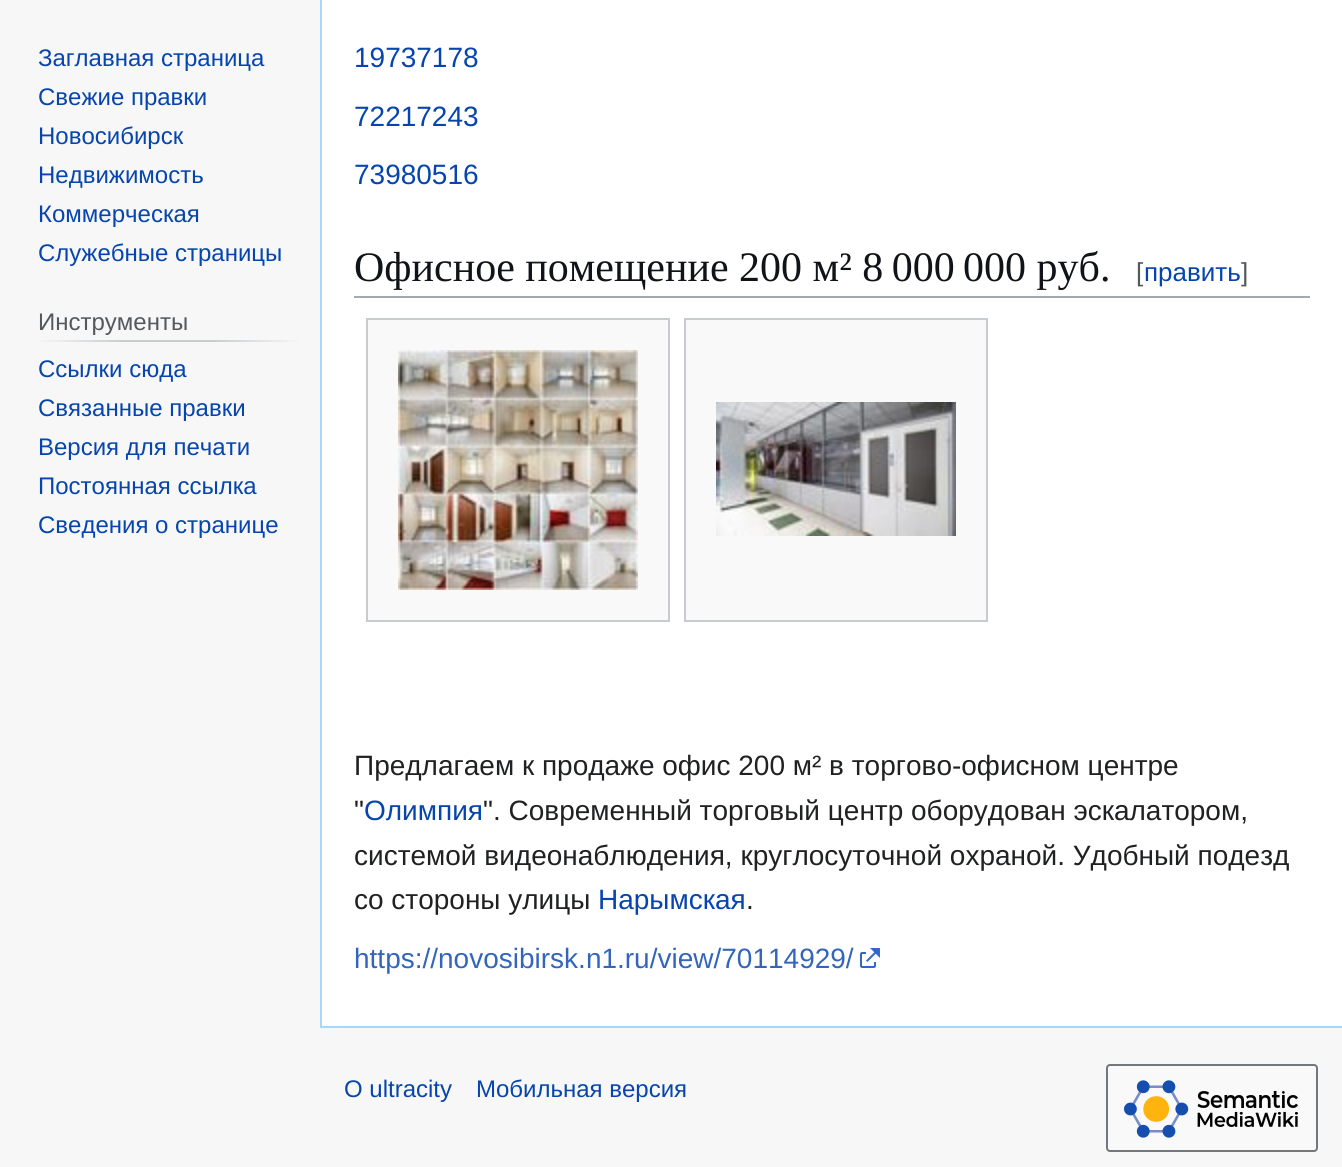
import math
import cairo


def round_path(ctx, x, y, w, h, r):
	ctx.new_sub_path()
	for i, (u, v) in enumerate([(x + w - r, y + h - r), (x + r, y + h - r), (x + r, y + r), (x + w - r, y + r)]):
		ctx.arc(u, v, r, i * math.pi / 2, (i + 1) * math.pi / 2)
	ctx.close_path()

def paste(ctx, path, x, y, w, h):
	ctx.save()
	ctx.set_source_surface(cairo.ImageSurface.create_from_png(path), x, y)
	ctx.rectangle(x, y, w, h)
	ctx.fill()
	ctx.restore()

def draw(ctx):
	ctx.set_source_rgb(0.965, 0.965, 0.965)
	ctx.paint()
	ctx.select_font_face('Liberation Sans')
	ctx.set_font_size(24)
	ctx.set_source_rgb(0.024, 0.271, 0.678)
	for x, y, s in [
		(38, 66, 'Заглавная страница'),
		(38, 105, 'Свежие правки'),
		(38, 144, 'Новосибирск'),
		(38, 183, 'Недвижимость'),
		(38, 222, 'Коммерческая'),
		(38, 261, 'Служебные страницы'),
	]:
		ctx.move_to(x, y)
		ctx.show_text(s)
	gradient = cairo.LinearGradient(38, 341, 300, 341)
	gradient.add_color_stop_rgba(0, 0.965, 0.965, 0.965, 1)
	gradient.add_color_stop_rgba(0.33, 0.784, 0.8, 0.82, 1)
	gradient.add_color_stop_rgba(0.66, 0.784, 0.8, 0.82, 1)
	gradient.add_color_stop_rgba(1, 0.965, 0.965, 0.965, 1)
	ctx.set_source(gradient)
	ctx.rectangle(38, 340, 262, 2)
	ctx.fill()
	ctx.set_source_rgb(0.329, 0.349, 0.365)
	ctx.move_to(38, 330)
	ctx.show_text('Инструменты')
	ctx.set_source_rgb(0.024, 0.271, 0.678)
	for x, y, s in [
		(38, 377, 'Ссылки сюда'),
		(38, 416, 'Связанные правки'),
		(38, 455, 'Версия для печати'),
		(38, 494, 'Постоянная ссылка'),
		(38, 533, 'Сведения о странице'),
	]:
		ctx.move_to(x, y)
		ctx.show_text(s)
	ctx.set_source_rgb(1, 1, 1)
	ctx.rectangle(322, 0, 1020, 1026)
	ctx.fill()
	ctx.set_source_rgb(0.655, 0.843, 0.976)
	ctx.rectangle(320, 1026, 1022, 2)
	ctx.rectangle(320, 0, 2, 1028)
	ctx.fill()
	ctx.set_font_size(28)
	ctx.set_source_rgb(0.024, 0.271, 0.678)
	for x, y, s in [
		(354, 67, '19737178'),
		(354, 126, '72217243'),
		(354, 184, '73980516'),
	]:
		ctx.move_to(x, y)
		ctx.show_text(s)
	ctx.set_source_rgb(0.635, 0.663, 0.694)
	ctx.rectangle(354, 296, 956, 2)
	ctx.fill()
	ctx.select_font_face('Liberation Serif')
	ctx.set_font_size(42)
	ctx.set_source_rgb(0.063, 0.078, 0.094)
	ctx.move_to(354, 281)
	ctx.show_text('Офисное помещение 200 м² 8 000 000 руб.')
	ctx.select_font_face('Liberation Sans')
	ctx.set_font_size(26)
	ctx.set_source_rgb(0.329, 0.349, 0.365)
	ctx.move_to(1136, 281)
	ctx.show_text('[')
	ctx.set_source_rgb(0.024, 0.271, 0.678)
	ctx.move_to(1144, 281)
	ctx.show_text('править')
	ctx.set_source_rgb(0.329, 0.349, 0.365)
	ctx.move_to(1241, 281)
	ctx.show_text(']')
	ctx.set_source_rgb(0.973, 0.976, 0.98)
	ctx.rectangle(367, 319, 302, 302)
	ctx.fill_preserve()
	ctx.set_source_rgb(0.784, 0.8, 0.82)
	ctx.stroke()
	paste(ctx, 'media/1.png', 398, 350, 240, 240)
	ctx.set_source_rgb(0.973, 0.976, 0.98)
	ctx.rectangle(685, 319, 302, 302)
	ctx.fill_preserve()
	ctx.set_source_rgb(0.784, 0.8, 0.82)
	ctx.stroke()
	paste(ctx, 'media/2.png', 716, 402, 240, 134)
	ctx.set_font_size(28)
	ctx.set_source_rgb(0.125, 0.129, 0.133)
	ctx.move_to(354, 775)
	ctx.show_text('Предлагаем к продаже офис 200 м² в торгово-офисном центре')
	ctx.move_to(354, 820)
	ctx.show_text('"')
	ctx.set_source_rgb(0.024, 0.271, 0.678)
	ctx.move_to(364, 820)
	ctx.show_text('Олимпия')
	ctx.set_source_rgb(0.125, 0.129, 0.133)
	for x, y, s in [
		(483, 820, '". Современный торговый центр оборудован эскалатором,'),
		(354, 865, 'системой видеонаблюдения, круглосуточной охраной. Удобный подезд'),
		(354, 909, 'со стороны улицы'),
	]:
		ctx.move_to(x, y)
		ctx.show_text(s)
	ctx.set_source_rgb(0.024, 0.271, 0.678)
	ctx.move_to(598, 909)
	ctx.show_text('Нарымская')
	ctx.set_source_rgb(0.125, 0.129, 0.133)
	ctx.move_to(746, 909)
	ctx.show_text('.')
	ctx.set_source_rgb(0.2, 0.4, 0.733)
	ctx.move_to(354, 968)
	ctx.show_text('https://novosibirsk.n1.ru/view/70114929/')
	paste(ctx, 'media/3.png', 860, 948, 20, 20)
	ctx.set_font_size(24)
	ctx.set_source_rgb(0.024, 0.271, 0.678)
	ctx.move_to(344, 1097)
	ctx.show_text('О ultracity')
	ctx.move_to(476, 1097)
	ctx.show_text('Мобильная версия')
	ctx.set_source_rgb(0.973, 0.976, 0.98)
	round_path(ctx, 1107, 1065, 210, 86, 3)
	ctx.fill_preserve()
	ctx.set_source_rgb(0.447, 0.467, 0.49)
	ctx.stroke()
	paste(ctx, 'media/4.png', 1124, 1080, 174, 58)


surface = cairo.ImageSurface(cairo.FORMAT_RGB24, 1342, 1167)
ctx = cairo.Context(surface)
options = cairo.FontOptions()
options.set_hint_metrics(cairo.HINT_METRICS_OFF)
options.set_hint_style(cairo.HINT_STYLE_NONE)
ctx.set_font_options(options)
ctx.set_miter_limit(4)
draw(ctx)
surface.write_to_png('image.png')
